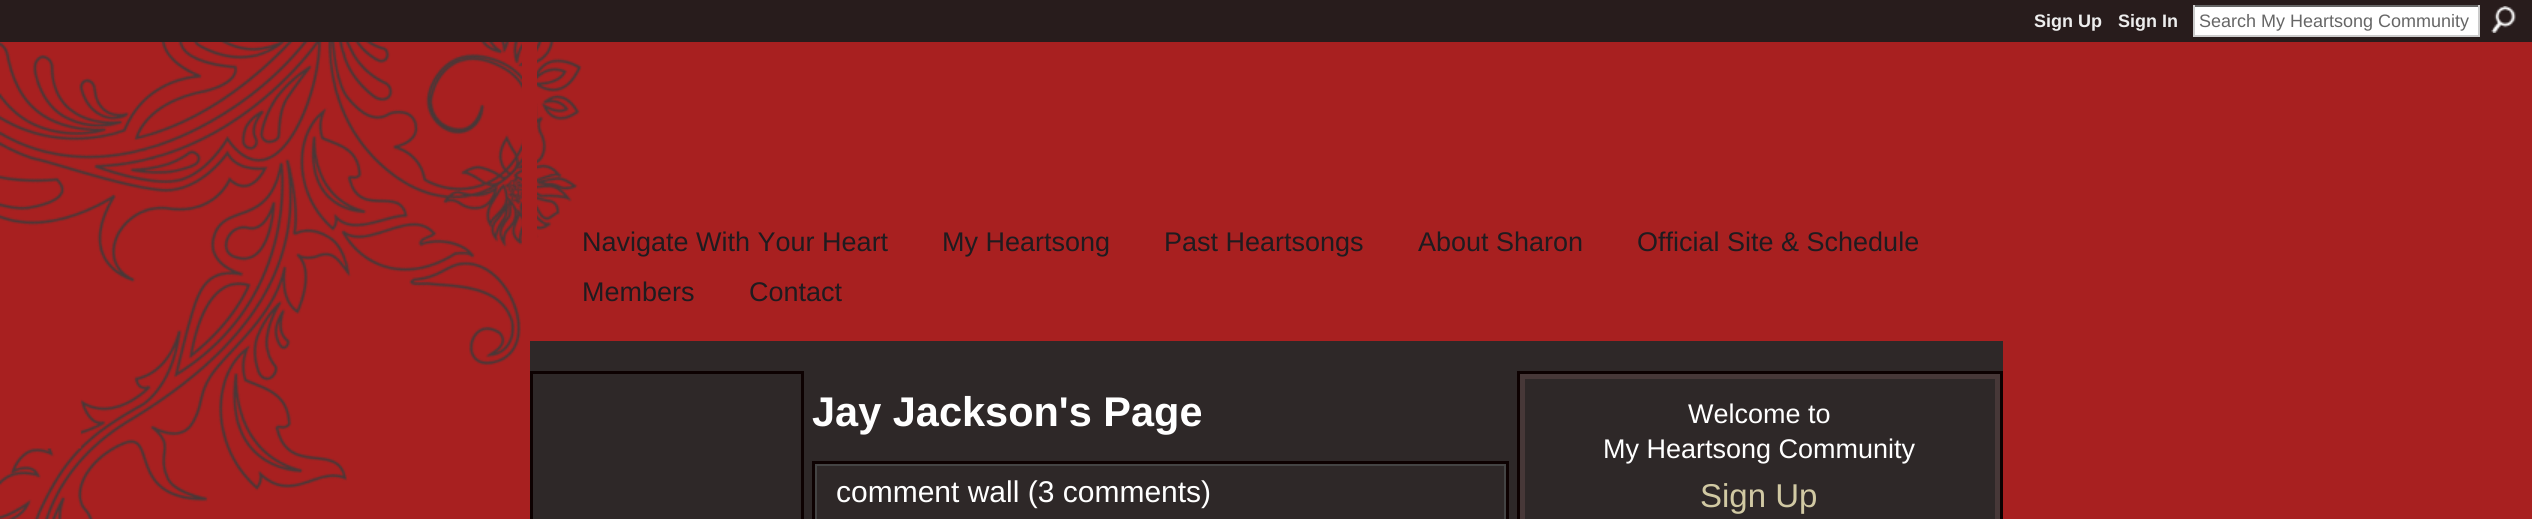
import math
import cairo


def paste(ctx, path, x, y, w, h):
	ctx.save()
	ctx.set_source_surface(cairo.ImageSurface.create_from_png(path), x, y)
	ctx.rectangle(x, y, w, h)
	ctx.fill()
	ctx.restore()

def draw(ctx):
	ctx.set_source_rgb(0.659, 0.125, 0.125)
	ctx.paint()
	paste(ctx, 'media/1.png', 0, 42, 582, 477)
	ctx.set_source_rgb(0.157, 0.11, 0.11)
	ctx.rectangle(0, 0, 2532, 42)
	ctx.fill()
	ctx.select_font_face('Liberation Sans', cairo.FONT_SLANT_NORMAL, cairo.FONT_WEIGHT_BOLD)
	ctx.set_font_size(18)
	ctx.set_source_rgb(0.933, 0.933, 0.933)
	ctx.move_to(2034, 27)
	ctx.show_text('Sign Up')
	ctx.move_to(2118, 27)
	ctx.show_text('Sign In')
	ctx.set_source_rgb(1, 1, 1)
	ctx.rectangle(2195, 7, 283, 28)
	ctx.fill()
	ctx.set_source_rgb(0.4, 0.4, 0.4)
	ctx.rectangle(2193, 5, 287, 2)
	ctx.fill()
	ctx.set_source_rgb(0.8, 0.8, 0.8)
	ctx.rectangle(2478, 5, 2, 31)
	ctx.rectangle(2193, 35, 287, 2)
	ctx.rectangle(2193, 5, 2, 31)
	ctx.fill()
	ctx.select_font_face('Liberation Sans')
	ctx.set_source_rgb(0.4, 0.4, 0.4)
	ctx.move_to(2199, 27)
	ctx.show_text('Search My Heartsong Community')
	paste(ctx, 'media/2.png', 2491, 6, 25, 27)
	ctx.set_source_rgb(0.659, 0.125, 0.125)
	ctx.rectangle(522, 42, 15, 202)
	ctx.fill()
	ctx.set_font_size(27)
	ctx.set_source_rgb(0.122, 0.106, 0.122)
	for x, y, s in [
		(582, 251, 'Navigate With Your Heart'),
		(942, 251, 'My Heartsong'),
		(1164, 251, 'Past Heartsongs'),
		(1418, 251, 'About Sharon'),
		(1637, 251, 'Official Site & Schedule'),
		(582, 301, 'Members'),
		(749, 301, 'Contact'),
	]:
		ctx.move_to(x, y)
		ctx.show_text(s)
	ctx.set_source_rgb(0.18, 0.157, 0.157)
	ctx.rectangle(530, 341, 1473, 178)
	ctx.fill()
	ctx.rectangle(531.5, 372.5, 271, 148)
	ctx.set_source_rgb(0.051, 0.004, 0.004)
	ctx.set_line_width(3)
	ctx.stroke()
	ctx.select_font_face('Liberation Sans', cairo.FONT_SLANT_NORMAL, cairo.FONT_WEIGHT_BOLD)
	ctx.set_font_size(41.5)
	ctx.set_source_rgb(1, 1, 1)
	ctx.move_to(812, 426)
	ctx.show_text('Jay Jackson\'s Page')
	ctx.rectangle(813.5, 462.5, 694, 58)
	ctx.set_source_rgb(0.051, 0.004, 0.004)
	ctx.stroke()
	ctx.rectangle(816, 465, 689, 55)
	ctx.set_source_rgb(0.267, 0.267, 0.267)
	ctx.set_line_width(2)
	ctx.stroke()
	ctx.select_font_face('Liberation Sans')
	ctx.set_font_size(30)
	ctx.set_source_rgb(1, 1, 1)
	ctx.move_to(836, 502)
	ctx.show_text('comment wall (3 comments)')
	ctx.rectangle(1518.5, 372.5, 483, 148)
	ctx.set_source_rgb(0.051, 0.004, 0.004)
	ctx.set_line_width(3)
	ctx.stroke()
	ctx.rectangle(1522.5, 376.5, 475, 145)
	ctx.set_source_rgb(0.278, 0.22, 0.22)
	ctx.set_line_width(5)
	ctx.stroke()
	ctx.set_font_size(27)
	ctx.set_source_rgb(1, 1, 1)
	ctx.move_to(1688, 423)
	ctx.show_text('Welcome to')
	ctx.move_to(1603, 458)
	ctx.show_text('My Heartsong Community')
	ctx.set_font_size(33)
	ctx.set_source_rgb(0.82, 0.788, 0.639)
	ctx.move_to(1700, 507)
	ctx.show_text('Sign Up')


surface = cairo.ImageSurface(cairo.FORMAT_RGB24, 2532, 519)
ctx = cairo.Context(surface)
options = cairo.FontOptions()
options.set_hint_metrics(cairo.HINT_METRICS_OFF)
options.set_hint_style(cairo.HINT_STYLE_NONE)
ctx.set_font_options(options)
ctx.set_miter_limit(4)
draw(ctx)
surface.write_to_png('image.png')
